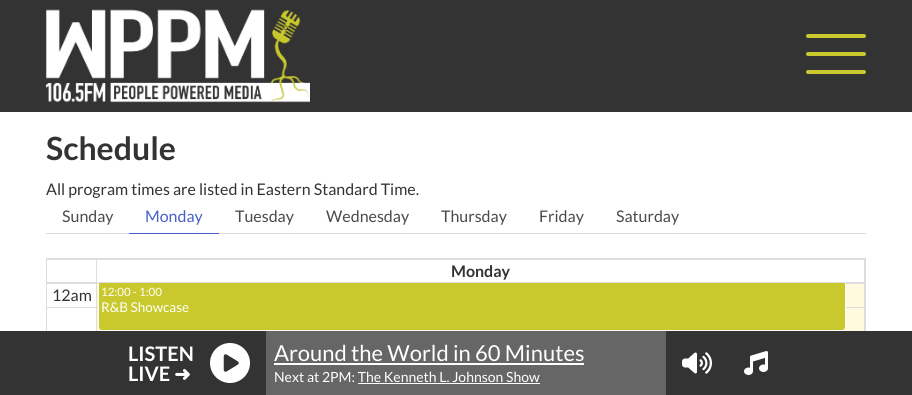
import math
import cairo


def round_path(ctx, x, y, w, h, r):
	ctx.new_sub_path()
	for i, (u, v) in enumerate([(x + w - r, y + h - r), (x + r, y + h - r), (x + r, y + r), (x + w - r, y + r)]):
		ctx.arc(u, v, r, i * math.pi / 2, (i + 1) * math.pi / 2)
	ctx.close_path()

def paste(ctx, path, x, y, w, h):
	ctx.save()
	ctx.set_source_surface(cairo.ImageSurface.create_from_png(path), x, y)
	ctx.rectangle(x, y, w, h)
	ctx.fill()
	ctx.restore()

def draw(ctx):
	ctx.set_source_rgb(1, 1, 1)
	ctx.paint()
	ctx.set_source_rgb(0.2, 0.2, 0.2)
	ctx.rectangle(0, 0, 912, 112)
	ctx.fill()
	paste(ctx, 'media/1.png', 46, 9, 264, 94)
	ctx.set_source_rgb(0.788, 0.788, 0.176)
	round_path(ctx, 806, 34, 60, 4, 2)
	ctx.fill()
	round_path(ctx, 806, 52, 60, 4, 2)
	ctx.fill()
	round_path(ctx, 806, 70, 60, 4, 2)
	ctx.fill()
	ctx.select_font_face('Lato', cairo.FONT_SLANT_NORMAL, cairo.FONT_WEIGHT_BOLD)
	ctx.set_font_size(32)
	ctx.set_source_rgb(0.2, 0.2, 0.2)
	ctx.move_to(46, 160)
	ctx.show_text('Schedule')
	ctx.select_font_face('Lato')
	ctx.set_font_size(16)
	ctx.move_to(46, 195)
	ctx.show_text('All program times are listed in Eastern Standard Time.')
	ctx.set_source_rgb(0.859, 0.859, 0.859)
	ctx.rectangle(46, 233, 820, 1)
	ctx.fill()
	ctx.set_source_rgb(0.29, 0.29, 0.29)
	ctx.move_to(62, 222)
	ctx.show_text('Sunday')
	ctx.set_source_rgb(0.282, 0.373, 0.78)
	ctx.rectangle(129, 233, 90, 1)
	ctx.fill()
	ctx.move_to(145, 222)
	ctx.show_text('Monday')
	ctx.set_source_rgb(0.29, 0.29, 0.29)
	for x, y, s in [
		(235, 222, 'Tuesday'),
		(326, 222, 'Wednesday'),
		(441, 222, 'Thursday'),
		(539, 222, 'Friday'),
		(616, 222, 'Saturday'),
	]:
		ctx.move_to(x, y)
		ctx.show_text(s)
	ctx.set_source_rgb(0.867, 0.867, 0.867)
	ctx.rectangle(46, 258, 820, 1)
	ctx.rectangle(46, 258, 1, 73)
	ctx.rectangle(96, 259, 769, 1)
	ctx.rectangle(864, 259, 1, 24)
	ctx.fill()
	ctx.set_source_rgb(1, 0.98, 0.875)
	ctx.rectangle(97, 284, 767, 47)
	ctx.fill()
	ctx.set_source_rgb(0.867, 0.867, 0.867)
	ctx.rectangle(96, 283, 769, 1)
	ctx.rectangle(864, 283, 1, 48)
	ctx.rectangle(96, 283, 1, 48)
	ctx.rectangle(47, 307, 818, 1)
	ctx.fill()
	ctx.new_path()
	ctx.move_to(98.5, 282.5)
	ctx.line_to(845.5, 282.5)
	ctx.line_to(845.5, 327)
	ctx.curve_to(845.5, 329, 844, 330.5, 842, 330.5)
	ctx.line_to(102, 330.5)
	ctx.curve_to(100, 330.5, 98.5, 329, 98.5, 327)
	ctx.close_path()
	ctx.set_source_rgb(1, 1, 1)
	ctx.set_line_width(1)
	ctx.stroke()
	ctx.set_source_rgb(0.867, 0.867, 0.867)
	ctx.rectangle(96, 282, 769, 1)
	ctx.rectangle(96, 259, 1, 24)
	ctx.rectangle(47, 259, 50, 1)
	ctx.rectangle(47, 282, 50, 1)
	ctx.fill()
	ctx.select_font_face('Lato', cairo.FONT_SLANT_NORMAL, cairo.FONT_WEIGHT_BOLD)
	ctx.set_source_rgb(0.2, 0.2, 0.2)
	ctx.move_to(451, 277)
	ctx.show_text('Monday')
	ctx.set_source_rgb(0.867, 0.867, 0.867)
	ctx.rectangle(865, 259, 1, 72)
	ctx.fill()
	ctx.select_font_face('Lato')
	ctx.set_source_rgb(0.2, 0.2, 0.2)
	ctx.move_to(52, 301)
	ctx.show_text('12am')
	ctx.set_source_rgb(0.867, 0.867, 0.867)
	ctx.rectangle(47, 283, 50, 1)
	ctx.fill()
	ctx.set_source_rgb(0.788, 0.788, 0.176)
	ctx.new_path()
	ctx.move_to(99.5, 283.5)
	ctx.line_to(844.5, 283.5)
	ctx.line_to(844.5, 327)
	ctx.curve_to(844.5, 328.5, 843.5, 329.5, 842, 329.5)
	ctx.line_to(102, 329.5)
	ctx.curve_to(100.5, 329.5, 99.5, 328.5, 99.5, 327)
	ctx.close_path()
	ctx.fill_preserve()
	ctx.stroke()
	ctx.set_font_size(11.5)
	ctx.set_source_rgb(1, 1, 1)
	ctx.move_to(101, 296)
	ctx.show_text('12:00 - 1:00')
	ctx.set_font_size(13.5)
	ctx.move_to(101, 312)
	ctx.show_text('R&B Showcase')
	round_path(ctx, 98.5, 330.5, 747, 48, 3.5)
	ctx.stroke()
	ctx.set_source_rgb(0.2, 0.2, 0.2)
	ctx.rectangle(0, 331, 912, 64)
	ctx.fill()
	ctx.select_font_face('Lato', cairo.FONT_SLANT_NORMAL, cairo.FONT_WEIGHT_BOLD)
	ctx.set_font_size(20)
	ctx.set_source_rgb(1, 1, 1)
	ctx.move_to(128, 361)
	ctx.show_text('LISTEN')
	ctx.move_to(128, 381)
	ctx.show_text('LIVE')
	ctx.select_font_face('DejaVu Sans', cairo.FONT_SLANT_NORMAL, cairo.FONT_WEIGHT_BOLD)
	ctx.move_to(174, 381)
	ctx.show_text('➜')
	paste(ctx, 'media/2.png', 210, 343, 40, 40)
	ctx.set_source_rgb(0.4, 0.4, 0.4)
	ctx.rectangle(266, 331, 400, 64)
	ctx.fill()
	ctx.select_font_face('Lato')
	ctx.set_font_size(22)
	ctx.set_source_rgb(1, 1, 1)
	ctx.move_to(274, 361)
	ctx.show_text('Around the World in 60 Minutes')
	ctx.rectangle(274, 363, 310, 2)
	ctx.fill()
	ctx.set_font_size(14)
	ctx.move_to(274, 382)
	ctx.show_text('Next at 2PM: The Kenneth L. Johnson Show')
	ctx.rectangle(358, 383, 182, 1)
	ctx.fill()
	paste(ctx, 'media/3.png', 682, 352, 30, 22)
	paste(ctx, 'media/4.png', 744, 351, 24, 24)


surface = cairo.ImageSurface(cairo.FORMAT_RGB24, 912, 395)
ctx = cairo.Context(surface)
options = cairo.FontOptions()
options.set_hint_metrics(cairo.HINT_METRICS_OFF)
options.set_hint_style(cairo.HINT_STYLE_NONE)
ctx.set_font_options(options)
ctx.set_miter_limit(4)
draw(ctx)
surface.write_to_png('image.png')
